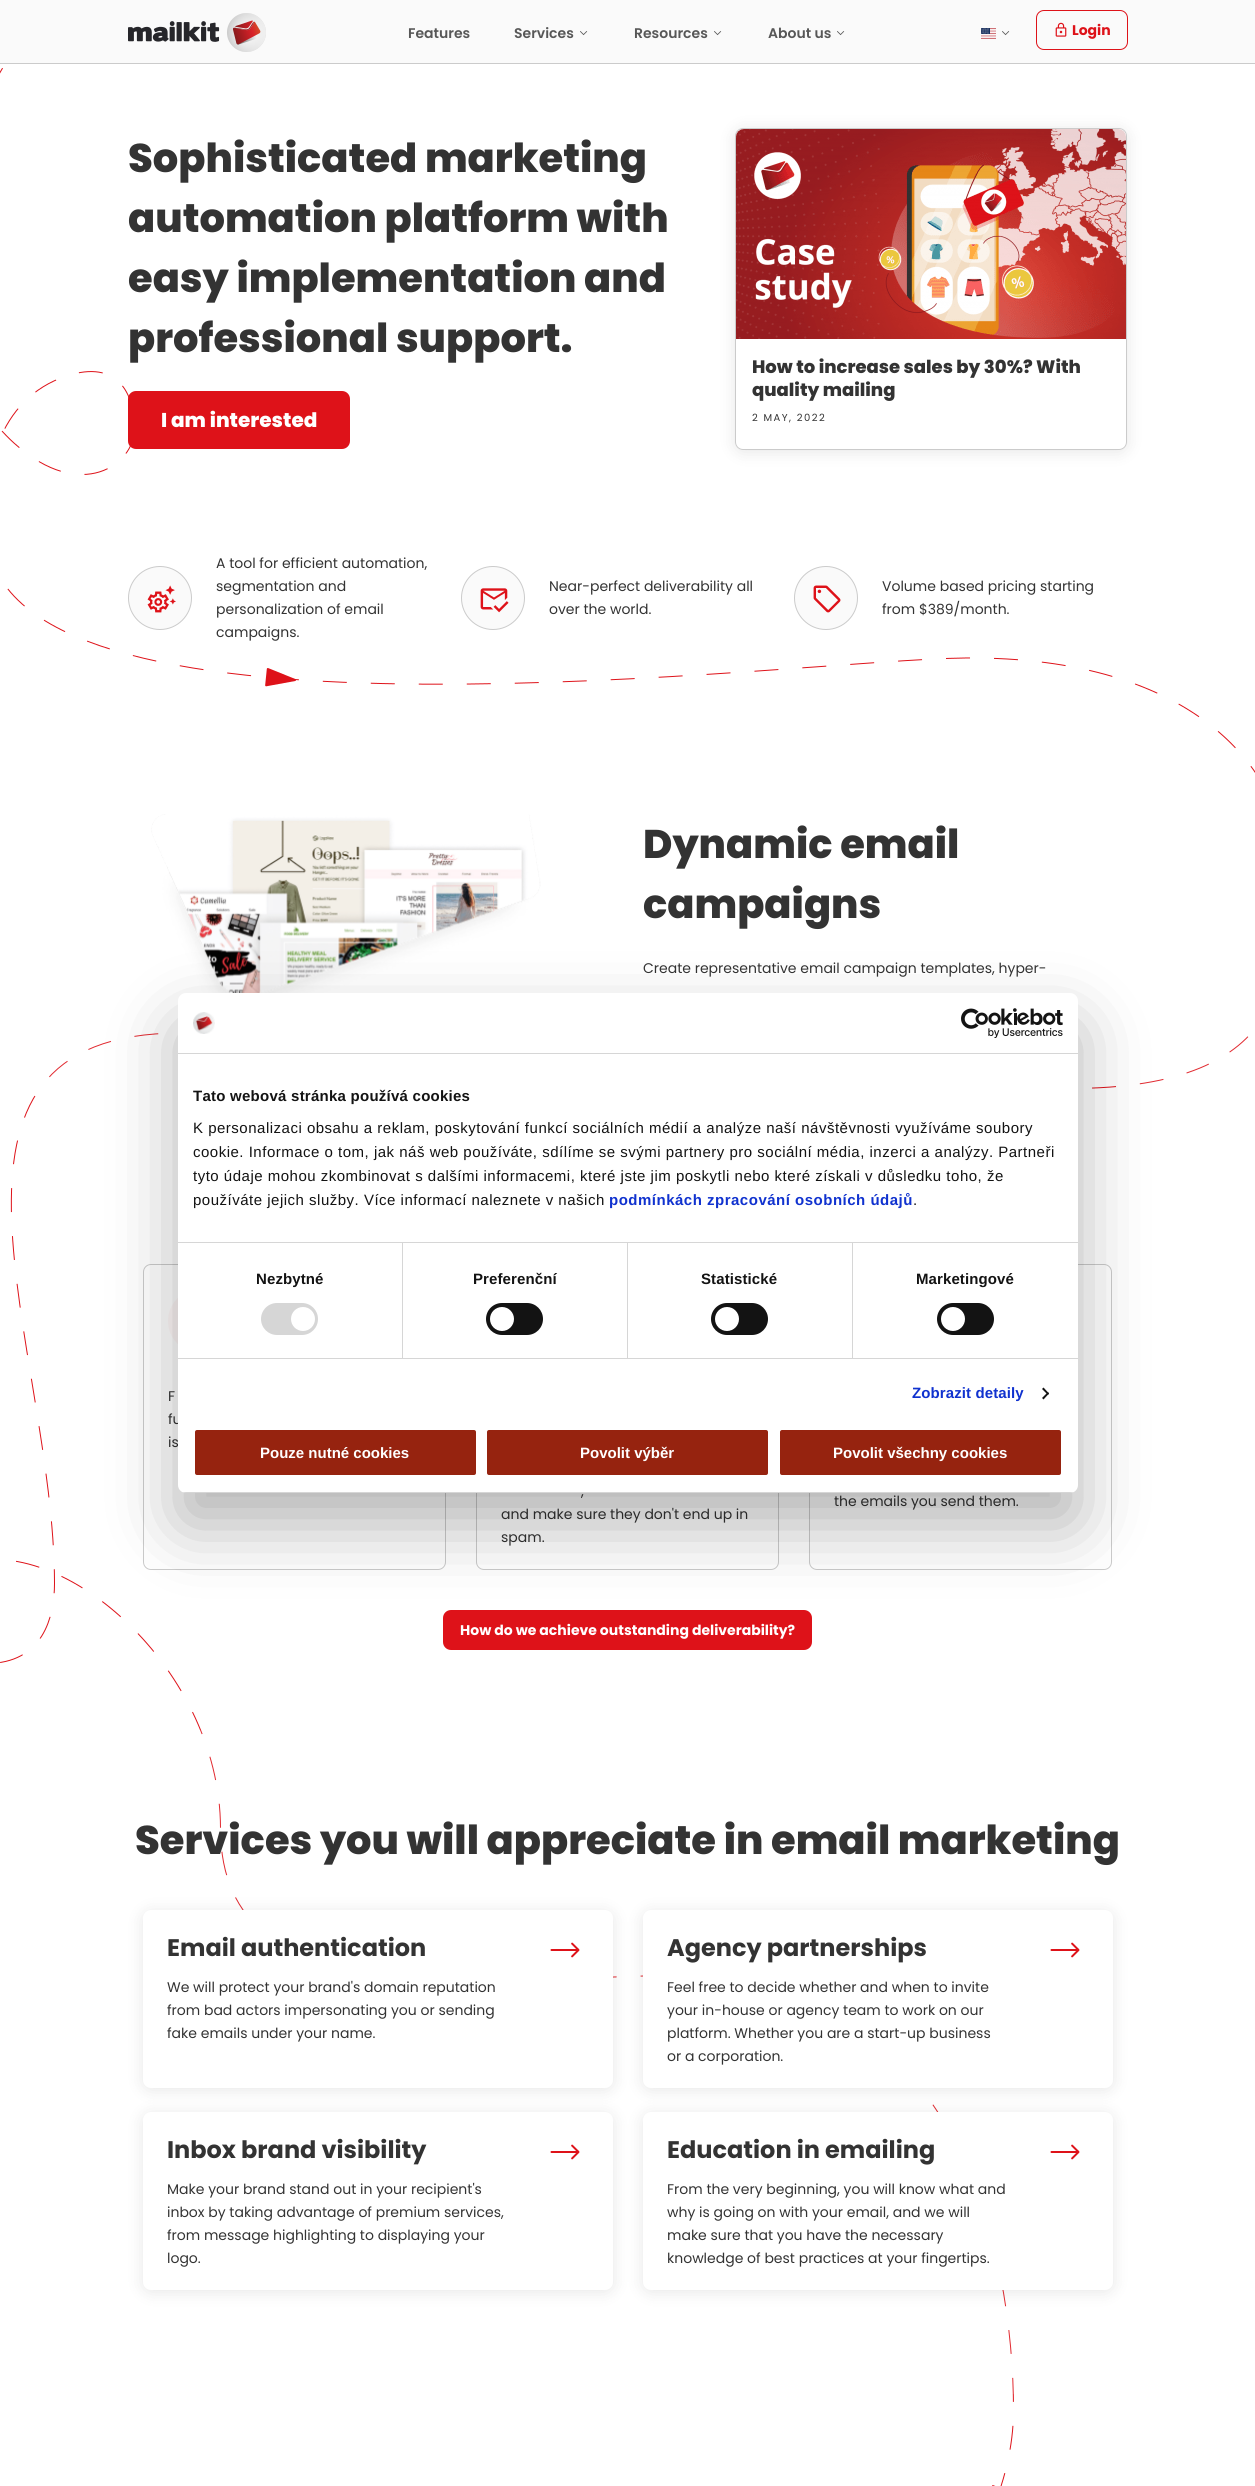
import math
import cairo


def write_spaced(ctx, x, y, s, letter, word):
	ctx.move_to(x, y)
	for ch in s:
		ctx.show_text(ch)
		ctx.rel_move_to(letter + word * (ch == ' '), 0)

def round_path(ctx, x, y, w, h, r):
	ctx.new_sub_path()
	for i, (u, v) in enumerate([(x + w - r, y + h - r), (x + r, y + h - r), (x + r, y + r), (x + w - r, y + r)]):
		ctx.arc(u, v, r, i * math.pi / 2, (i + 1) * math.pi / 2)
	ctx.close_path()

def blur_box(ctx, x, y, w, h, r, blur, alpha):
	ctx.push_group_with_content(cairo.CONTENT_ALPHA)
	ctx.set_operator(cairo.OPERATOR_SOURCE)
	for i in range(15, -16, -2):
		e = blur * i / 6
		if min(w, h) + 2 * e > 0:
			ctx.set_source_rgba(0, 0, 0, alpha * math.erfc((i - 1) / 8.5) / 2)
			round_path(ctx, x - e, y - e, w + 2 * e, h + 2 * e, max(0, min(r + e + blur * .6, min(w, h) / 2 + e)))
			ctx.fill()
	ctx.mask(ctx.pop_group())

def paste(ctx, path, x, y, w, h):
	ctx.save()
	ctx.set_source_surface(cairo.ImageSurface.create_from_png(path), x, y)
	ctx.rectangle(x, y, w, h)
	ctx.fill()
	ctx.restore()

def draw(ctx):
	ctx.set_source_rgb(1, 1, 1)
	ctx.paint()
	paste(ctx, 'media/1.png', 0, 68, 1255, 2418)
	ctx.set_source_rgb(0.98, 0.98, 0.98)
	ctx.rectangle(0, 0, 1255, 63)
	ctx.fill()
	ctx.set_source_rgb(0.796, 0.796, 0.796)
	ctx.rectangle(0, 63, 1255, 1)
	ctx.fill()
	paste(ctx, 'media/2.png', 128, 13, 138, 39)
	ctx.select_font_face('Poppins SemiBold')
	ctx.set_font_size(14)
	ctx.set_source_rgb(0.341, 0.341, 0.341)
	ctx.move_to(408, 38)
	ctx.show_text('Features')
	ctx.move_to(514, 38)
	ctx.show_text('Services')
	paste(ctx, 'media/3.png', 580, 31, 8, 5)
	ctx.move_to(634, 38)
	ctx.show_text('Resources')
	paste(ctx, 'media/3.png', 714, 31, 8, 5)
	ctx.move_to(768, 38)
	ctx.show_text('About us')
	paste(ctx, 'media/3.png', 837, 31, 8, 5)
	paste(ctx, 'media/4.png', 981, 28, 15, 11)
	paste(ctx, 'media/3.png', 1002, 31, 8, 5)
	round_path(ctx, 1036.5, 10.5, 91, 39, 7.5)
	ctx.set_source_rgb(0.871, 0.071, 0.098)
	ctx.set_line_width(1)
	ctx.stroke()
	paste(ctx, 'media/5.png', 1055, 22, 12, 15)
	ctx.select_font_face('Poppins', cairo.FONT_SLANT_NORMAL, cairo.FONT_WEIGHT_BOLD)
	ctx.move_to(1072, 35)
	ctx.show_text('Login')
	ctx.select_font_face('Poppins ExtraBold')
	ctx.set_font_size(40)
	ctx.set_source_rgb(0.2, 0.2, 0.2)
	for x, y, s in [
		(128, 172, 'Sophisticated marketing'),
		(128, 232, 'automation platform with'),
		(128, 292, 'easy implementation and'),
		(128, 352, 'professional support.'),
	]:
		ctx.move_to(x, y)
		ctx.show_text(s)
	ctx.set_source_rgb(0.871, 0.071, 0.098)
	round_path(ctx, 128, 391, 222, 58, 8)
	ctx.fill()
	ctx.set_font_size(20)
	ctx.set_source_rgb(1, 1, 1)
	ctx.move_to(161, 427)
	ctx.show_text('I am interested')
	ctx.save()
	ctx.set_fill_rule(cairo.FILL_RULE_EVEN_ODD)
	ctx.new_path()
	ctx.move_to(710, 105)
	ctx.line_to(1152, 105)
	ctx.line_to(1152, 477)
	ctx.line_to(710, 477)
	ctx.close_path()
	ctx.move_to(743, 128)
	ctx.line_to(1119, 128)
	ctx.curve_to(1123.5, 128, 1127, 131.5, 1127, 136)
	ctx.line_to(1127, 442)
	ctx.curve_to(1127, 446.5, 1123.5, 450, 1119, 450)
	ctx.line_to(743, 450)
	ctx.curve_to(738.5, 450, 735, 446.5, 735, 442)
	ctx.line_to(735, 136)
	ctx.curve_to(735, 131.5, 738.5, 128, 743, 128)
	ctx.close_path()
	ctx.clip()
	ctx.set_source_rgb(0, 0, 0)
	blur_box(ctx, 735, 130, 392, 322, 8, 8, 0.1)
	ctx.restore()
	round_path(ctx, 735.5, 128.5, 391, 321, 7.5)
	ctx.set_source_rgb(0.796, 0.796, 0.796)
	ctx.stroke()
	paste(ctx, 'media/6.png', 736, 129, 390, 210)
	ctx.set_font_size(18)
	ctx.set_source_rgb(0.2, 0.2, 0.2)
	ctx.move_to(752, 373)
	ctx.show_text('How to increase sales by 30%? With')
	ctx.move_to(752, 396)
	ctx.show_text('quality mailing')
	ctx.select_font_face('Poppins')
	ctx.set_font_size(10)
	write_spaced(ctx, 752, 421, '2 MAY, 2022', 1.5, 0)
	ctx.set_source_rgb(0.98, 0.98, 0.98)
	ctx.new_path()
	ctx.arc(160, 598, 31.5, 0, 2 * math.pi)
	ctx.fill_preserve()
	ctx.set_source_rgb(0.796, 0.796, 0.796)
	ctx.stroke()
	paste(ctx, 'media/7.png', 147, 585, 29, 28)
	ctx.set_font_size(14)
	ctx.set_source_rgb(0.2, 0.2, 0.2)
	for x, y, s in [
		(216, 568, 'A tool for efficient automation,'),
		(216, 591, 'segmentation and'),
		(216, 614, 'personalization of email'),
		(216, 637, 'campaigns.'),
	]:
		ctx.move_to(x, y)
		ctx.show_text(s)
	ctx.set_source_rgb(0.98, 0.98, 0.98)
	ctx.new_path()
	ctx.arc(493, 598, 31.5, 0, 2 * math.pi)
	ctx.fill_preserve()
	ctx.set_source_rgb(0.796, 0.796, 0.796)
	ctx.stroke()
	paste(ctx, 'media/8.png', 480, 588, 29, 25)
	ctx.set_source_rgb(0.2, 0.2, 0.2)
	ctx.move_to(549, 591)
	ctx.show_text('Near-perfect deliverability all')
	ctx.move_to(549, 614)
	ctx.show_text('over the world.')
	ctx.set_source_rgb(0.98, 0.98, 0.98)
	ctx.new_path()
	ctx.arc(826, 598, 31.5, 0, 2 * math.pi)
	ctx.fill_preserve()
	ctx.set_source_rgb(0.796, 0.796, 0.796)
	ctx.stroke()
	paste(ctx, 'media/9.png', 813, 585, 28, 28)
	ctx.set_source_rgb(0.2, 0.2, 0.2)
	ctx.move_to(882, 591)
	ctx.show_text('Volume based pricing starting')
	ctx.move_to(882, 614)
	ctx.show_text('from $389/month.')
	ctx.set_source_rgba(1, 1, 1, 0.1)
	ctx.rectangle(49, 1032, 1199, 52)
	ctx.fill()
	paste(ctx, 'media/10.png', 151, 814, 390, 179)
	ctx.select_font_face('Poppins ExtraBold')
	ctx.set_font_size(40)
	ctx.set_source_rgb(0.2, 0.2, 0.2)
	ctx.move_to(643, 858)
	ctx.show_text('Dynamic email')
	ctx.move_to(643, 918)
	ctx.show_text('campaigns')
	ctx.select_font_face('Poppins')
	ctx.set_font_size(14)
	ctx.move_to(643, 973)
	ctx.show_text('Create representative email campaign templates, hyper-')
	round_path(ctx, 143.5, 1264.5, 302, 305, 7.5)
	ctx.set_source_rgb(0.796, 0.796, 0.796)
	ctx.stroke()
	ctx.set_source_rgb(0.996, 0.965, 0.965)
	ctx.arc(200, 1321, 32, 0, 2 * math.pi)
	ctx.fill()
	ctx.set_source_rgb(0.2, 0.2, 0.2)
	for x, y, s in [
		(168, 1401, 'F'),
		(168, 1424, 'fu'),
		(168, 1447, 'is'),
	]:
		ctx.move_to(x, y)
		ctx.show_text(s)
	round_path(ctx, 476.5, 1264.5, 302, 305, 7.5)
	ctx.set_source_rgb(0.796, 0.796, 0.796)
	ctx.stroke()
	ctx.set_source_rgb(0.2, 0.2, 0.2)
	for x, y, s in [
		(581, 1496, ','),
		(501, 1519, 'and make sure they don\'t end up in'),
		(501, 1542, 'spam.'),
	]:
		ctx.move_to(x, y)
		ctx.show_text(s)
	round_path(ctx, 809.5, 1264.5, 302, 305, 7.5)
	ctx.set_source_rgb(0.796, 0.796, 0.796)
	ctx.stroke()
	ctx.set_source_rgb(0.2, 0.2, 0.2)
	ctx.move_to(834, 1506)
	ctx.show_text('the emails you send them.')
	ctx.set_source_rgb(0.871, 0.071, 0.098)
	round_path(ctx, 443, 1610, 369, 40, 8)
	ctx.fill()
	ctx.select_font_face('Poppins', cairo.FONT_SLANT_NORMAL, cairo.FONT_WEIGHT_BOLD)
	ctx.set_source_rgb(1, 1, 1)
	ctx.move_to(460, 1635)
	ctx.show_text('How do we achieve outstanding deliverability?')
	ctx.set_source_rgba(1, 1, 1, 0.1)
	ctx.rectangle(200, 1730, 814, 664)
	ctx.fill()
	ctx.select_font_face('Poppins ExtraBold')
	ctx.set_font_size(40)
	ctx.set_source_rgb(0.2, 0.2, 0.2)
	ctx.move_to(135, 1854)
	ctx.show_text('Services you will appreciate in email marketing')
	ctx.set_source_rgb(0, 0, 0)
	blur_box(ctx, 143, 1912, 470, 178, 8, 8, 0.1)
	ctx.set_source_rgb(1, 1, 1)
	round_path(ctx, 143, 1910, 470, 178, 8)
	ctx.fill()
	ctx.select_font_face('Poppins', cairo.FONT_SLANT_NORMAL, cairo.FONT_WEIGHT_BOLD)
	ctx.set_font_size(24)
	ctx.set_source_rgb(0.2, 0.2, 0.2)
	ctx.move_to(167, 1956)
	ctx.show_text('Email authentication')
	ctx.select_font_face('Poppins')
	ctx.set_font_size(14)
	for x, y, s in [
		(167, 1992, 'We will protect your brand\'s domain reputation'),
		(167, 2015, 'from bad actors impersonating you or sending'),
		(167, 2038, 'fake emails under your name.'),
	]:
		ctx.move_to(x, y)
		ctx.show_text(s)
	paste(ctx, 'media/11.png', 550, 1942, 30, 16)
	ctx.set_source_rgb(0, 0, 0)
	blur_box(ctx, 643, 1912, 470, 178, 8, 8, 0.1)
	ctx.set_source_rgb(1, 1, 1)
	round_path(ctx, 643, 1910, 470, 178, 8)
	ctx.fill()
	ctx.select_font_face('Poppins', cairo.FONT_SLANT_NORMAL, cairo.FONT_WEIGHT_BOLD)
	ctx.set_font_size(24)
	ctx.set_source_rgb(0.2, 0.2, 0.2)
	ctx.move_to(667, 1956)
	ctx.show_text('Agency partnerships')
	ctx.select_font_face('Poppins')
	ctx.set_font_size(14)
	for x, y, s in [
		(667, 1992, 'Feel free to decide whether and when to invite'),
		(667, 2015, 'your in-house or agency team to work on our'),
		(667, 2038, 'platform. Whether you are a start-up business'),
		(667, 2061, 'or a corporation.'),
	]:
		ctx.move_to(x, y)
		ctx.show_text(s)
	paste(ctx, 'media/11.png', 1050, 1942, 30, 16)
	ctx.set_source_rgb(0, 0, 0)
	blur_box(ctx, 143, 2114, 470, 178, 8, 8, 0.1)
	ctx.set_source_rgb(1, 1, 1)
	round_path(ctx, 143, 2112, 470, 178, 8)
	ctx.fill()
	ctx.select_font_face('Poppins', cairo.FONT_SLANT_NORMAL, cairo.FONT_WEIGHT_BOLD)
	ctx.set_font_size(24)
	ctx.set_source_rgb(0.2, 0.2, 0.2)
	ctx.move_to(167, 2158)
	ctx.show_text('Inbox brand visibility')
	ctx.select_font_face('Poppins')
	ctx.set_font_size(14)
	for x, y, s in [
		(167, 2194, 'Make your brand stand out in your recipient\'s'),
		(167, 2217, 'inbox by taking advantage of premium services,'),
		(167, 2240, 'from message highlighting to displaying your'),
		(167, 2263, 'logo.'),
	]:
		ctx.move_to(x, y)
		ctx.show_text(s)
	paste(ctx, 'media/11.png', 550, 2144, 30, 16)
	ctx.set_source_rgb(0, 0, 0)
	blur_box(ctx, 643, 2114, 470, 178, 8, 8, 0.1)
	ctx.set_source_rgb(1, 1, 1)
	round_path(ctx, 643, 2112, 470, 178, 8)
	ctx.fill()
	ctx.select_font_face('Poppins', cairo.FONT_SLANT_NORMAL, cairo.FONT_WEIGHT_BOLD)
	ctx.set_font_size(24)
	ctx.set_source_rgb(0.2, 0.2, 0.2)
	ctx.move_to(667, 2158)
	ctx.show_text('Education in emailing')
	ctx.select_font_face('Poppins')
	ctx.set_font_size(14)
	for x, y, s in [
		(667, 2194, 'From the very beginning, you will know what and'),
		(667, 2217, 'why is going on with your email, and we will'),
		(667, 2240, 'make sure that you have the necessary'),
		(667, 2263, 'knowledge of best practices at your fingertips.'),
	]:
		ctx.move_to(x, y)
		ctx.show_text(s)
	paste(ctx, 'media/11.png', 1050, 2144, 30, 16)
	ctx.set_source_rgb(0, 0, 0)
	blur_box(ctx, 178, 1025, 900, 500, 8, 34, 0.3)
	ctx.set_source_rgb(1, 1, 1)
	round_path(ctx, 178, 993, 900, 500, 8)
	ctx.fill()
	ctx.set_source_rgb(0.839, 0.839, 0.839)
	ctx.rectangle(178, 1053, 900, 1)
	ctx.fill()
	paste(ctx, 'media/12.png', 193, 1012, 22, 22)
	paste(ctx, 'media/13.png', 961, 1008, 102, 30)
	ctx.rectangle(178, 1242, 900, 1)
	ctx.fill()
	ctx.select_font_face('Liberation Sans', cairo.FONT_SLANT_NORMAL, cairo.FONT_WEIGHT_BOLD)
	ctx.set_font_size(15)
	ctx.set_source_rgb(0.078, 0.078, 0.078)
	write_spaced(ctx, 193, 1101, 'Tato webová stránka používá cookies', 0.25, 0)
	ctx.select_font_face('Liberation Sans')
	for x, y, s in [
		(193, 1133, 'K personalizaci obsahu a reklam, poskytování funkcí sociálních médií a analýze naší návštěvnosti využíváme soubory'),
		(193, 1157, 'cookie. Informace o tom, jak náš web používáte, sdílíme se svými partnery pro sociální média, inzerci a analýzy. Partneři'),
		(193, 1181, 'tyto údaje mohou zkombinovat s dalšími informacemi, které jste jim poskytli nebo které získali v důsledku toho, že'),
		(193, 1205, 'používáte jejich služby. Více informací naleznete v našich'),
	]:
		write_spaced(ctx, x, y, s, 0.5, 0)
	ctx.select_font_face('Liberation Sans', cairo.FONT_SLANT_NORMAL, cairo.FONT_WEIGHT_BOLD)
	ctx.set_source_rgb(0.063, 0.196, 0.812)
	write_spaced(ctx, 609, 1205, 'podmínkách zpracování osobních údajů', 0.5, 0)
	ctx.select_font_face('Liberation Sans')
	ctx.set_source_rgb(0.078, 0.078, 0.078)
	write_spaced(ctx, 913, 1205, '.', 0.5, 0)
	ctx.set_source_rgb(0.839, 0.839, 0.839)
	ctx.rectangle(178, 1358, 900, 1)
	ctx.fill()
	ctx.rectangle(402, 1243, 1, 115)
	ctx.fill()
	ctx.select_font_face('Liberation Sans', cairo.FONT_SLANT_NORMAL, cairo.FONT_WEIGHT_BOLD)
	ctx.set_source_rgb(0.078, 0.078, 0.078)
	write_spaced(ctx, 256, 1284, 'Nezbytné', 0.1, 0)
	ctx.set_source_rgb(0.839, 0.839, 0.839)
	round_path(ctx, 261, 1303, 57, 32, 16)
	ctx.fill()
	ctx.set_source_rgb(1, 1, 1)
	ctx.arc(303, 1319, 12, 0, 2 * math.pi)
	ctx.fill()
	ctx.set_source_rgb(0.839, 0.839, 0.839)
	ctx.rectangle(627, 1243, 1, 115)
	ctx.fill()
	ctx.set_source_rgb(0.078, 0.078, 0.078)
	write_spaced(ctx, 473, 1284, 'Preferenční', 0.1, 0)
	round_path(ctx, 486, 1303, 57, 32, 16)
	ctx.fill()
	ctx.set_source_rgb(1, 1, 1)
	ctx.arc(502, 1319, 12, 0, 2 * math.pi)
	ctx.fill()
	ctx.set_source_rgb(0.839, 0.839, 0.839)
	ctx.rectangle(852, 1243, 1, 115)
	ctx.fill()
	ctx.set_source_rgb(0.078, 0.078, 0.078)
	write_spaced(ctx, 701, 1284, 'Statistické', 0.1, 0)
	round_path(ctx, 711, 1303, 57, 32, 16)
	ctx.fill()
	ctx.set_source_rgb(1, 1, 1)
	ctx.arc(727, 1319, 12, 0, 2 * math.pi)
	ctx.fill()
	ctx.set_source_rgb(0.078, 0.078, 0.078)
	write_spaced(ctx, 916, 1284, 'Marketingové', 0.1, 0)
	round_path(ctx, 937, 1303, 57, 32, 16)
	ctx.fill()
	ctx.set_source_rgb(1, 1, 1)
	ctx.arc(953, 1319, 12, 0, 2 * math.pi)
	ctx.fill()
	ctx.set_source_rgb(0.063, 0.196, 0.812)
	write_spaced(ctx, 912, 1398, 'Zobrazit detaily', 0.1, 0)
	ctx.set_source_rgb(0.078, 0.078, 0.078)
	ctx.new_path()
	ctx.move_to(1043.5, 1387.5)
	ctx.line_to(1049, 1393.5)
	ctx.line_to(1048, 1395)
	ctx.line_to(1042, 1389)
	ctx.close_path()
	ctx.fill()
	ctx.new_path()
	ctx.move_to(1048, 1392)
	ctx.line_to(1049, 1393.5)
	ctx.line_to(1043.5, 1399.5)
	ctx.line_to(1042, 1398)
	ctx.close_path()
	ctx.fill()
	ctx.save()
	round_path(ctx, 178, 993, 900, 500, 8)
	ctx.clip()
	ctx.set_source_rgb(0.839, 0.839, 0.839)
	ctx.rectangle(178, 1492, 900, 1)
	ctx.fill()
	ctx.restore()
	ctx.set_source_rgb(0.588, 0.137, 0.059)
	round_path(ctx, 194, 1429, 283, 47, 3)
	ctx.fill_preserve()
	ctx.set_source_rgb(1, 1, 1)
	ctx.set_line_width(2)
	ctx.stroke()
	ctx.move_to(260, 1458)
	ctx.show_text('Pouze nutné cookies')
	ctx.set_source_rgb(0.588, 0.137, 0.059)
	round_path(ctx, 486, 1429, 283, 47, 3)
	ctx.fill_preserve()
	ctx.set_source_rgb(1, 1, 1)
	ctx.stroke()
	ctx.move_to(580, 1458)
	ctx.show_text('Povolit výběr')
	ctx.set_source_rgb(0.588, 0.137, 0.059)
	round_path(ctx, 779, 1429, 283, 47, 3)
	ctx.fill_preserve()
	ctx.set_source_rgb(1, 1, 1)
	ctx.stroke()
	ctx.move_to(833, 1458)
	ctx.show_text('Povolit všechny cookies')


surface = cairo.ImageSurface(cairo.FORMAT_RGB24, 1255, 2486)
ctx = cairo.Context(surface)
options = cairo.FontOptions()
options.set_hint_metrics(cairo.HINT_METRICS_OFF)
options.set_hint_style(cairo.HINT_STYLE_NONE)
ctx.set_font_options(options)
ctx.set_miter_limit(4)
draw(ctx)
surface.write_to_png('image.png')
